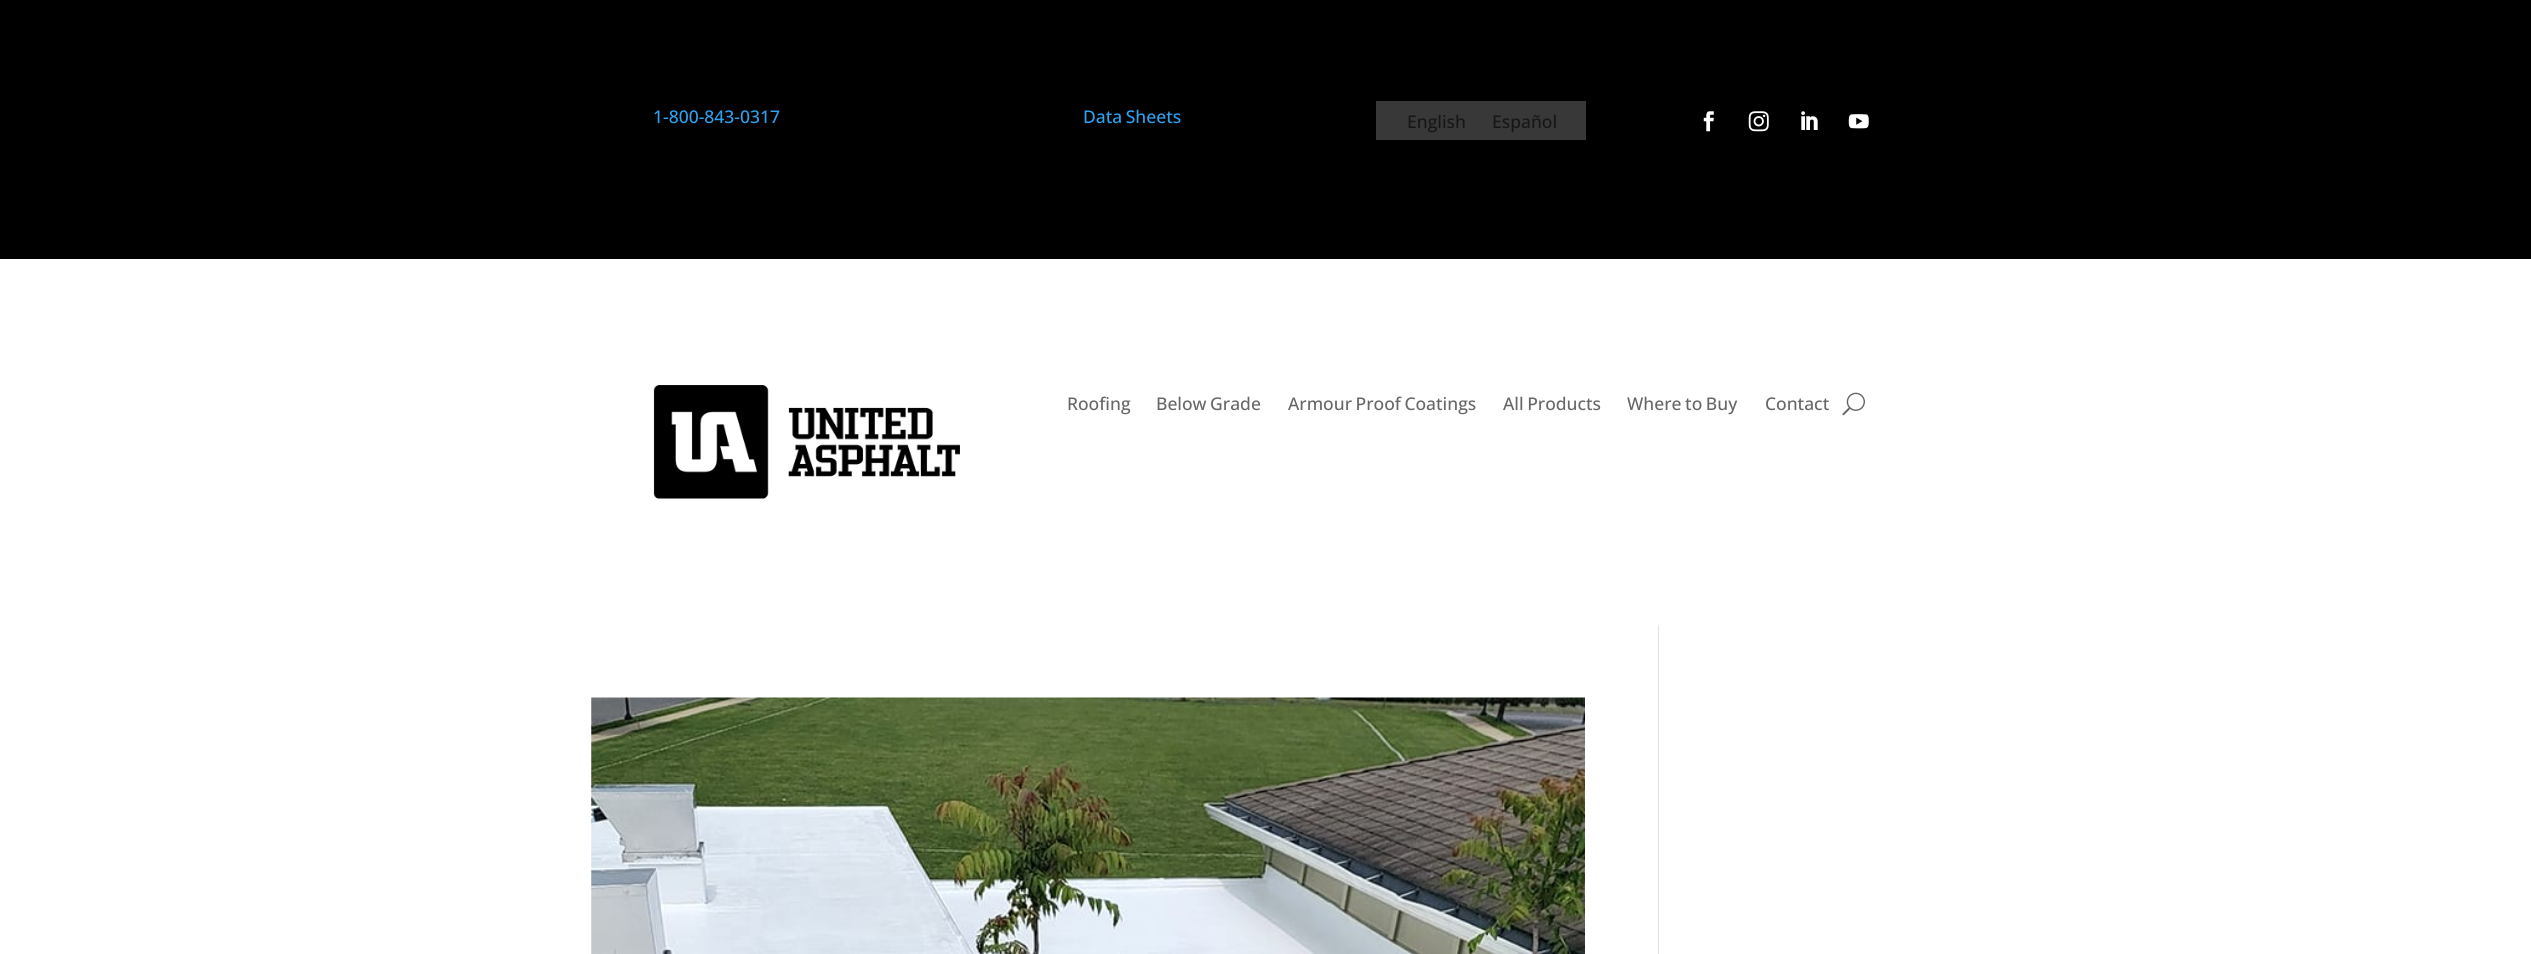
import math
import cairo


def write_spaced(ctx, x, y, s, letter, word):
	ctx.move_to(x, y)
	for ch in s:
		ctx.show_text(ch)
		ctx.rel_move_to(letter + word * (ch == ' '), 0)

def paste(ctx, path, x, y, w, h):
	ctx.save()
	ctx.set_source_surface(cairo.ImageSurface.create_from_png(path), x, y)
	ctx.rectangle(x, y, w, h)
	ctx.fill()
	ctx.restore()

def draw(ctx):
	ctx.set_source_rgb(1, 1, 1)
	ctx.paint()
	ctx.set_source_rgb(0, 0, 0)
	ctx.rectangle(0, 0, 2531, 259)
	ctx.fill()
	ctx.select_font_face('Open Sans Medium')
	ctx.set_font_size(17.5)
	ctx.set_source_rgb(0.18, 0.639, 0.949)
	ctx.move_to(653, 123)
	ctx.show_text('1-800-843-0317')
	write_spaced(ctx, 1083, 123, 'Data Sheets', 0, -1)
	ctx.set_source_rgb(0.22, 0.22, 0.22)
	ctx.rectangle(1376, 101, 210, 39)
	ctx.fill()
	ctx.set_source_rgb(0.086, 0.086, 0.086)
	ctx.move_to(1407, 128)
	ctx.show_text('English')
	ctx.move_to(1492, 128)
	ctx.show_text('Español')
	paste(ctx, 'media/1.png', 1703, 111, 11, 21)
	paste(ctx, 'media/2.png', 1748, 111, 21, 21)
	paste(ctx, 'media/3.png', 1801, 111, 17, 19)
	paste(ctx, 'media/4.png', 1848, 114, 21, 15)
	paste(ctx, 'media/5.png', 653, 385, 307, 114)
	ctx.set_source_rgb(0.4, 0.4, 0.4)
	ctx.move_to(1067, 410)
	ctx.show_text('Roofing')
	for x, y, s in [
		(1156, 410, 'Below Grade'),
		(1288, 410, 'Armour Proof Coatings'),
		(1503, 410, 'All Products'),
		(1627, 410, 'Where to Buy'),
	]:
		write_spaced(ctx, x, y, s, 0, -1)
	ctx.move_to(1765, 410)
	ctx.show_text('Contact')
	paste(ctx, 'media/6.png', 1842, 392, 23, 24)
	paste(ctx, 'media/7.png', 591, 697, 994, 257)
	ctx.set_source_rgb(0.886, 0.886, 0.886)
	ctx.rectangle(1658, 625, 1, 329)
	ctx.fill()


surface = cairo.ImageSurface(cairo.FORMAT_RGB24, 2531, 954)
ctx = cairo.Context(surface)
options = cairo.FontOptions()
options.set_hint_metrics(cairo.HINT_METRICS_OFF)
options.set_hint_style(cairo.HINT_STYLE_NONE)
ctx.set_font_options(options)
ctx.set_miter_limit(4)
draw(ctx)
surface.write_to_png('image.png')
